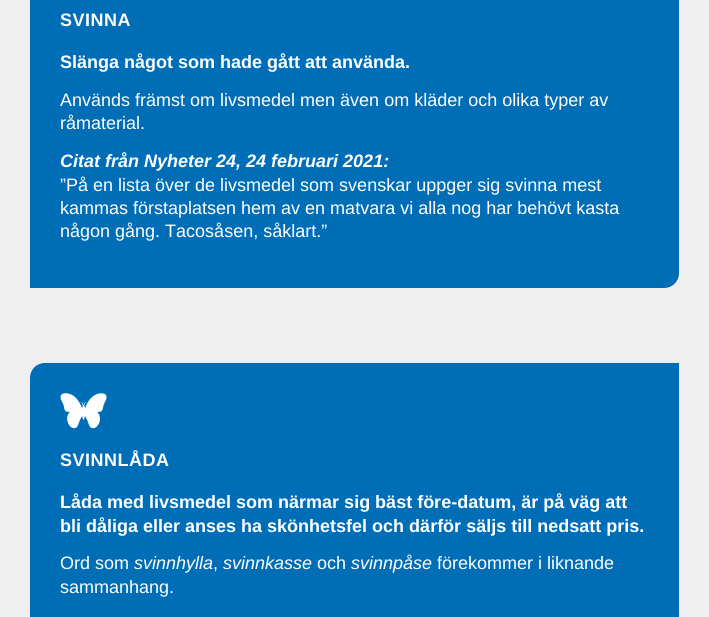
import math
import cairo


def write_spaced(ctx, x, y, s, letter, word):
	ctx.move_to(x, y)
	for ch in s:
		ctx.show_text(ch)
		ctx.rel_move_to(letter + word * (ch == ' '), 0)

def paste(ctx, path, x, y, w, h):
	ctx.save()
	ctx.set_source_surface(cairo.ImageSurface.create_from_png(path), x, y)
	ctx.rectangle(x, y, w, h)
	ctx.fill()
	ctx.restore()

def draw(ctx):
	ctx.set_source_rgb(0.937, 0.937, 0.937)
	ctx.paint()
	ctx.set_source_rgb(0, 0.431, 0.718)
	ctx.new_path()
	ctx.move_to(45, -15)
	ctx.line_to(679, -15)
	ctx.line_to(679, 273)
	ctx.curve_to(679, 281.5, 672.5, 288, 664, 288)
	ctx.line_to(30, 288)
	ctx.line_to(30, 0)
	ctx.curve_to(30, -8.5, 36.5, -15, 45, -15)
	ctx.close_path()
	ctx.fill()
	ctx.select_font_face('Liberation Sans', cairo.FONT_SLANT_NORMAL, cairo.FONT_WEIGHT_BOLD)
	ctx.set_font_size(18)
	ctx.set_source_rgb(1, 1, 1)
	write_spaced(ctx, 60, 26, 'SVINNA', 0.5, 0)
	ctx.move_to(60, 68)
	ctx.show_text('Slänga något som hade gått att använda.')
	ctx.select_font_face('Liberation Sans')
	ctx.move_to(60, 106)
	ctx.show_text('Används främst om livsmedel men även om kläder och olika typer av')
	ctx.move_to(60, 129)
	ctx.show_text('råmaterial.')
	ctx.select_font_face('Liberation Sans', cairo.FONT_SLANT_ITALIC, cairo.FONT_WEIGHT_BOLD)
	ctx.move_to(60, 167)
	ctx.show_text('Citat från Nyheter 24, 24 februari 2021:')
	ctx.select_font_face('Liberation Sans')
	for x, y, s in [
		(60, 191, '”På en lista över de livsmedel som svenskar uppger sig svinna mest'),
		(60, 214, 'kammas förstaplatsen hem av en matvara vi alla nog har behövt kasta'),
		(60, 237, 'någon gång. Tacosåsen, såklart.”'),
	]:
		ctx.move_to(x, y)
		ctx.show_text(s)
	ctx.set_source_rgb(0, 0.431, 0.718)
	ctx.new_path()
	ctx.move_to(45, 363)
	ctx.line_to(679, 363)
	ctx.line_to(679, 617)
	ctx.curve_to(679, 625.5, 672.5, 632, 664, 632)
	ctx.line_to(30, 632)
	ctx.line_to(30, 378)
	ctx.curve_to(30, 369.5, 36.5, 363, 45, 363)
	ctx.close_path()
	ctx.fill()
	paste(ctx, 'media/1.png', 60, 393, 47, 36)
	ctx.select_font_face('Liberation Sans', cairo.FONT_SLANT_NORMAL, cairo.FONT_WEIGHT_BOLD)
	ctx.set_source_rgb(1, 1, 1)
	write_spaced(ctx, 60, 466, 'SVINNLÅDA', 0.5, 0)
	ctx.move_to(60, 508)
	ctx.show_text('Låda med livsmedel som närmar sig bäst före-datum, är på väg att')
	ctx.move_to(60, 532)
	ctx.show_text('bli dåliga eller anses ha skönhetsfel och därför säljs till nedsatt pris.')
	ctx.select_font_face('Liberation Sans')
	ctx.move_to(60, 569)
	ctx.show_text('Ord som')
	ctx.select_font_face('Liberation Sans', cairo.FONT_SLANT_ITALIC)
	ctx.move_to(134, 569)
	ctx.show_text('svinnhylla')
	ctx.select_font_face('Liberation Sans')
	ctx.move_to(213, 569)
	ctx.show_text(',')
	ctx.select_font_face('Liberation Sans', cairo.FONT_SLANT_ITALIC)
	ctx.move_to(223, 569)
	ctx.show_text('svinnkasse')
	ctx.select_font_face('Liberation Sans')
	ctx.move_to(317, 569)
	ctx.show_text('och')
	ctx.select_font_face('Liberation Sans', cairo.FONT_SLANT_ITALIC)
	ctx.move_to(351, 569)
	ctx.show_text('svinnpåse')
	ctx.select_font_face('Liberation Sans')
	ctx.move_to(437, 569)
	ctx.show_text('förekommer i liknande')
	ctx.move_to(60, 593)
	ctx.show_text('sammanhang.')


surface = cairo.ImageSurface(cairo.FORMAT_RGB24, 709, 617)
ctx = cairo.Context(surface)
options = cairo.FontOptions()
options.set_hint_metrics(cairo.HINT_METRICS_OFF)
options.set_hint_style(cairo.HINT_STYLE_NONE)
ctx.set_font_options(options)
ctx.set_miter_limit(4)
draw(ctx)
surface.write_to_png('image.png')
